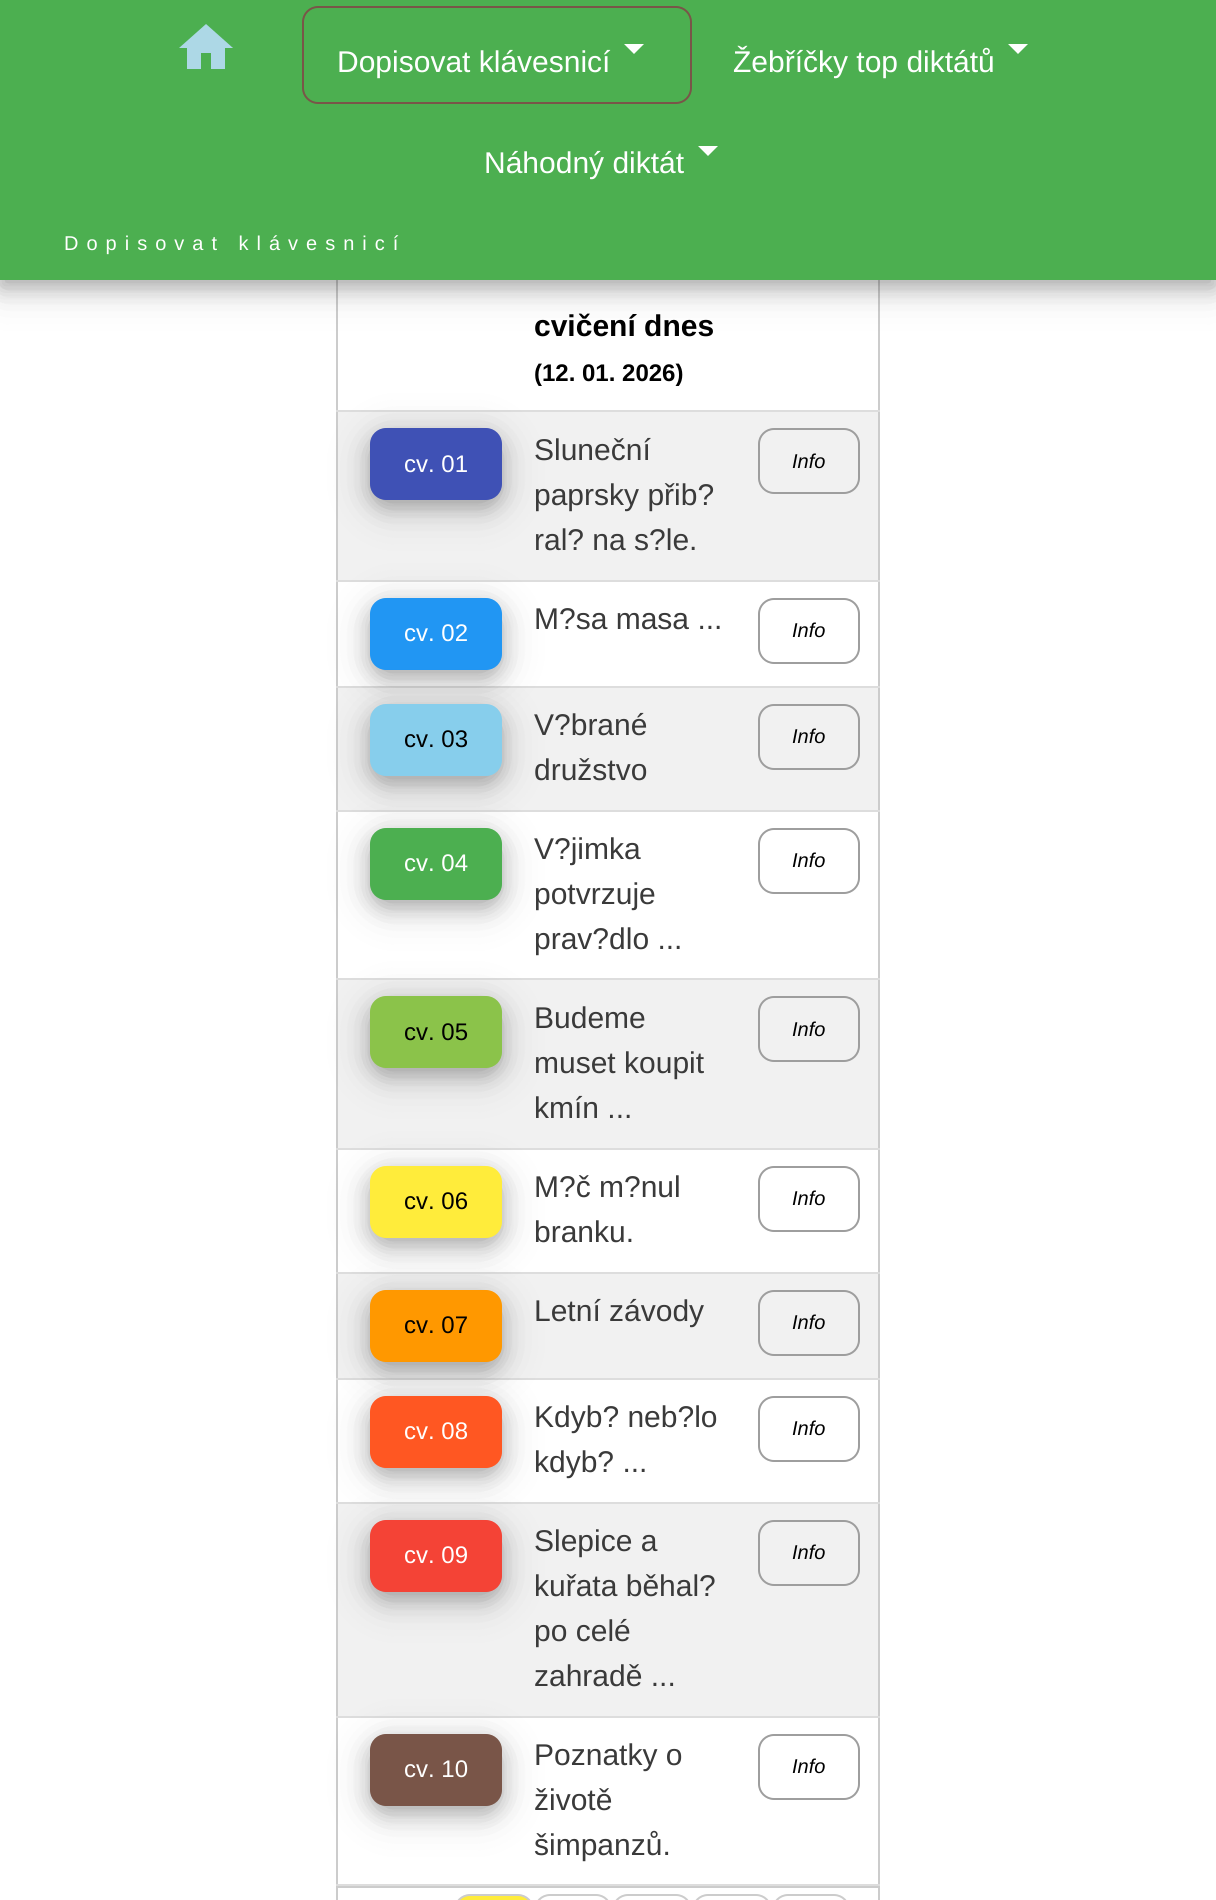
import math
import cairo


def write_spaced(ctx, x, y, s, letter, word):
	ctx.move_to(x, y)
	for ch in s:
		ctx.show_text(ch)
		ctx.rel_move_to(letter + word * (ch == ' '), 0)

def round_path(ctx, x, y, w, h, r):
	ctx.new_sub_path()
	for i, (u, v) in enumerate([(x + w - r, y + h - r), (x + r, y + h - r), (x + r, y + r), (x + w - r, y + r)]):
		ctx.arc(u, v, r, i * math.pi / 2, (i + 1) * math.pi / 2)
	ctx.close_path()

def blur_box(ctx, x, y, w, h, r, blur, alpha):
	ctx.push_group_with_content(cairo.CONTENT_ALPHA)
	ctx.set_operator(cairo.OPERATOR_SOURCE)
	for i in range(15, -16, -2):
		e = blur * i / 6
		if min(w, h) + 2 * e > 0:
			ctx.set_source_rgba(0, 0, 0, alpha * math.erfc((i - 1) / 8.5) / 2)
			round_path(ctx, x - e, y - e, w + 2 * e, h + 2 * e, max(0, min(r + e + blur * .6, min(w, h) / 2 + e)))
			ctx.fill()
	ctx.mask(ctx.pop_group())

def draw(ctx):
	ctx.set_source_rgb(1, 1, 1)
	ctx.paint()
	ctx.set_source_rgb(0.8, 0.8, 0.8)
	ctx.rectangle(878, 280, 2, 1606)
	ctx.fill()
	ctx.rectangle(336, 280, 2, 1606)
	ctx.fill()
	ctx.set_source_rgb(0, 0, 0)
	blur_box(ctx, 0, 8, 1216, 280, 0, 20, 0.19)
	blur_box(ctx, 0, 8, 1216, 280, 0, 10, 0.2)
	ctx.set_source_rgb(0.298, 0.686, 0.314)
	ctx.rectangle(0, 0, 1216, 280)
	ctx.fill()
	ctx.set_source_rgb(0.678, 0.847, 0.902)
	ctx.new_path()
	ctx.move_to(201, 69)
	ctx.line_to(187, 69)
	ctx.line_to(187, 48)
	ctx.line_to(179, 48)
	ctx.line_to(206, 24)
	ctx.line_to(233, 48)
	ctx.line_to(225, 48)
	ctx.line_to(225, 69)
	ctx.line_to(211, 69)
	ctx.line_to(211, 53)
	ctx.line_to(201, 53)
	ctx.close_path()
	ctx.fill()
	round_path(ctx, 303, 7, 388, 96, 15)
	ctx.set_source_rgb(0.475, 0.333, 0.282)
	ctx.stroke()
	ctx.select_font_face('Liberation Sans')
	ctx.set_font_size(30)
	ctx.set_source_rgb(1, 1, 1)
	ctx.move_to(337, 72)
	ctx.show_text('Dopisovat klávesnicí')
	ctx.new_path()
	ctx.move_to(624, 44)
	ctx.line_to(644, 44)
	ctx.line_to(634, 54)
	ctx.close_path()
	ctx.fill()
	ctx.move_to(733, 72)
	ctx.show_text('Žebříčky top diktátů')
	ctx.new_path()
	ctx.move_to(1008, 44)
	ctx.line_to(1028, 44)
	ctx.line_to(1018, 54)
	ctx.close_path()
	ctx.fill()
	ctx.move_to(484, 173)
	ctx.show_text('Náhodný diktát')
	ctx.new_path()
	ctx.move_to(698, 146)
	ctx.line_to(718, 146)
	ctx.line_to(708, 156)
	ctx.close_path()
	ctx.fill()
	ctx.set_font_size(20)
	write_spaced(ctx, 64, 250, 'Dopisovat klávesnicí', 8, 0)
	ctx.set_source_rgb(0.867, 0.867, 0.867)
	ctx.rectangle(336, 410, 544, 2)
	ctx.fill()
	ctx.select_font_face('Liberation Sans', cairo.FONT_SLANT_NORMAL, cairo.FONT_WEIGHT_BOLD)
	ctx.set_font_size(30)
	ctx.set_source_rgb(0, 0, 0)
	ctx.move_to(534, 336)
	ctx.show_text('cvičení dnes')
	ctx.set_font_size(24)
	ctx.move_to(534, 381)
	ctx.show_text('(12. 01. 2026)')
	ctx.set_source_rgb(0.945, 0.945, 0.945)
	ctx.rectangle(338, 412, 540, 168)
	ctx.fill()
	ctx.set_source_rgb(0.867, 0.867, 0.867)
	ctx.rectangle(336, 580, 544, 2)
	ctx.fill()
	ctx.set_source_rgb(0, 0, 0)
	blur_box(ctx, 370, 436, 132, 72, 16, 20, 0.19)
	blur_box(ctx, 370, 436, 132, 72, 16, 10, 0.2)
	ctx.set_source_rgb(0.247, 0.318, 0.71)
	round_path(ctx, 371, 429, 130, 70, 15)
	ctx.fill_preserve()
	ctx.stroke()
	ctx.select_font_face('Liberation Sans')
	ctx.set_source_rgb(1, 1, 1)
	ctx.move_to(404, 472)
	ctx.show_text('cv. 01')
	ctx.set_font_size(30)
	ctx.set_source_rgb(0.227, 0.227, 0.227)
	for x, y, s in [
		(534, 460, 'Sluneční'),
		(534, 505, 'paprsky přib?'),
		(534, 550, 'ral? na s?le.'),
	]:
		ctx.move_to(x, y)
		ctx.show_text(s)
	round_path(ctx, 759, 429, 100, 64, 15)
	ctx.set_source_rgb(0.62, 0.62, 0.62)
	ctx.stroke()
	ctx.select_font_face('Liberation Sans', cairo.FONT_SLANT_ITALIC)
	ctx.set_font_size(20)
	ctx.set_source_rgb(0, 0, 0)
	ctx.move_to(792, 468)
	ctx.show_text('Info')
	ctx.set_source_rgb(0.867, 0.867, 0.867)
	ctx.rectangle(336, 686, 544, 2)
	ctx.fill()
	ctx.set_source_rgb(0.945, 0.945, 0.945)
	ctx.rectangle(338, 688, 540, 122)
	ctx.fill()
	ctx.set_source_rgb(0, 0, 0)
	blur_box(ctx, 370, 606, 132, 72, 16, 20, 0.19)
	blur_box(ctx, 370, 606, 132, 72, 16, 10, 0.2)
	ctx.set_source_rgb(0.129, 0.588, 0.953)
	round_path(ctx, 371, 599, 130, 70, 15)
	ctx.fill_preserve()
	ctx.stroke()
	ctx.select_font_face('Liberation Sans')
	ctx.set_font_size(24)
	ctx.set_source_rgb(1, 1, 1)
	ctx.move_to(404, 641)
	ctx.show_text('cv. 02')
	ctx.set_font_size(30)
	ctx.set_source_rgb(0.227, 0.227, 0.227)
	ctx.move_to(534, 629)
	ctx.show_text('M?sa masa ...')
	round_path(ctx, 759, 599, 100, 64, 15)
	ctx.set_source_rgb(0.62, 0.62, 0.62)
	ctx.stroke()
	ctx.select_font_face('Liberation Sans', cairo.FONT_SLANT_ITALIC)
	ctx.set_font_size(20)
	ctx.set_source_rgb(0, 0, 0)
	ctx.move_to(792, 637)
	ctx.show_text('Info')
	ctx.set_source_rgb(0.867, 0.867, 0.867)
	ctx.rectangle(336, 810, 544, 2)
	ctx.fill()
	ctx.set_source_rgb(0, 0, 0)
	blur_box(ctx, 370, 712, 132, 72, 16, 20, 0.19)
	blur_box(ctx, 370, 712, 132, 72, 16, 10, 0.2)
	ctx.set_source_rgb(0.529, 0.808, 0.922)
	round_path(ctx, 371, 705, 130, 70, 15)
	ctx.fill_preserve()
	ctx.stroke()
	ctx.select_font_face('Liberation Sans')
	ctx.set_font_size(24)
	ctx.set_source_rgb(0, 0, 0)
	ctx.move_to(404, 747)
	ctx.show_text('cv. 03')
	ctx.set_font_size(30)
	ctx.set_source_rgb(0.227, 0.227, 0.227)
	ctx.move_to(534, 735)
	ctx.show_text('V?brané')
	ctx.move_to(534, 780)
	ctx.show_text('družstvo')
	round_path(ctx, 759, 705, 100, 64, 15)
	ctx.set_source_rgb(0.62, 0.62, 0.62)
	ctx.stroke()
	ctx.select_font_face('Liberation Sans', cairo.FONT_SLANT_ITALIC)
	ctx.set_font_size(20)
	ctx.set_source_rgb(0, 0, 0)
	ctx.move_to(792, 743)
	ctx.show_text('Info')
	ctx.set_source_rgb(0.867, 0.867, 0.867)
	ctx.rectangle(336, 978, 544, 2)
	ctx.fill()
	ctx.set_source_rgb(0, 0, 0)
	blur_box(ctx, 370, 836, 132, 72, 16, 20, 0.19)
	blur_box(ctx, 370, 836, 132, 72, 16, 10, 0.2)
	ctx.set_source_rgb(0.298, 0.686, 0.314)
	round_path(ctx, 371, 829, 130, 70, 15)
	ctx.fill_preserve()
	ctx.stroke()
	ctx.select_font_face('Liberation Sans')
	ctx.set_font_size(24)
	ctx.set_source_rgb(1, 1, 1)
	ctx.move_to(404, 871)
	ctx.show_text('cv. 04')
	ctx.set_font_size(30)
	ctx.set_source_rgb(0.227, 0.227, 0.227)
	for x, y, s in [
		(534, 859, 'V?jimka'),
		(534, 904, 'potvrzuje'),
		(534, 949, 'prav?dlo ...'),
	]:
		ctx.move_to(x, y)
		ctx.show_text(s)
	round_path(ctx, 759, 829, 100, 64, 15)
	ctx.set_source_rgb(0.62, 0.62, 0.62)
	ctx.stroke()
	ctx.select_font_face('Liberation Sans', cairo.FONT_SLANT_ITALIC)
	ctx.set_font_size(20)
	ctx.set_source_rgb(0, 0, 0)
	ctx.move_to(792, 867)
	ctx.show_text('Info')
	ctx.set_source_rgb(0.945, 0.945, 0.945)
	ctx.rectangle(338, 980, 540, 168)
	ctx.fill()
	ctx.set_source_rgb(0.867, 0.867, 0.867)
	ctx.rectangle(336, 1148, 544, 2)
	ctx.fill()
	ctx.set_source_rgb(0, 0, 0)
	blur_box(ctx, 370, 1004, 132, 72, 16, 20, 0.19)
	blur_box(ctx, 370, 1004, 132, 72, 16, 10, 0.2)
	ctx.set_source_rgb(0.545, 0.765, 0.29)
	round_path(ctx, 371, 997, 130, 70, 15)
	ctx.fill_preserve()
	ctx.stroke()
	ctx.select_font_face('Liberation Sans')
	ctx.set_font_size(24)
	ctx.set_source_rgb(0, 0, 0)
	ctx.move_to(404, 1040)
	ctx.show_text('cv. 05')
	ctx.set_font_size(30)
	ctx.set_source_rgb(0.227, 0.227, 0.227)
	for x, y, s in [
		(534, 1028, 'Budeme'),
		(534, 1073, 'muset koupit'),
		(534, 1118, 'kmín ...'),
	]:
		ctx.move_to(x, y)
		ctx.show_text(s)
	round_path(ctx, 759, 997, 100, 64, 15)
	ctx.set_source_rgb(0.62, 0.62, 0.62)
	ctx.stroke()
	ctx.select_font_face('Liberation Sans', cairo.FONT_SLANT_ITALIC)
	ctx.set_font_size(20)
	ctx.set_source_rgb(0, 0, 0)
	ctx.move_to(792, 1036)
	ctx.show_text('Info')
	ctx.set_source_rgb(0.867, 0.867, 0.867)
	ctx.rectangle(336, 1272, 544, 2)
	ctx.fill()
	ctx.set_source_rgb(0.945, 0.945, 0.945)
	ctx.rectangle(338, 1274, 540, 104)
	ctx.fill()
	ctx.set_source_rgb(0, 0, 0)
	blur_box(ctx, 370, 1174, 132, 72, 16, 20, 0.19)
	blur_box(ctx, 370, 1174, 132, 72, 16, 10, 0.2)
	ctx.set_source_rgb(1, 0.922, 0.231)
	round_path(ctx, 371, 1167, 130, 70, 15)
	ctx.fill_preserve()
	ctx.stroke()
	ctx.select_font_face('Liberation Sans')
	ctx.set_font_size(24)
	ctx.set_source_rgb(0, 0, 0)
	ctx.move_to(404, 1209)
	ctx.show_text('cv. 06')
	ctx.set_font_size(30)
	ctx.set_source_rgb(0.227, 0.227, 0.227)
	ctx.move_to(534, 1197)
	ctx.show_text('M?č m?nul')
	ctx.move_to(534, 1242)
	ctx.show_text('branku.')
	round_path(ctx, 759, 1167, 100, 64, 15)
	ctx.set_source_rgb(0.62, 0.62, 0.62)
	ctx.stroke()
	ctx.select_font_face('Liberation Sans', cairo.FONT_SLANT_ITALIC)
	ctx.set_font_size(20)
	ctx.set_source_rgb(0, 0, 0)
	ctx.move_to(792, 1205)
	ctx.show_text('Info')
	ctx.set_source_rgb(0.867, 0.867, 0.867)
	ctx.rectangle(336, 1378, 544, 2)
	ctx.fill()
	ctx.set_source_rgb(0, 0, 0)
	blur_box(ctx, 370, 1298, 132, 72, 16, 20, 0.19)
	blur_box(ctx, 370, 1298, 132, 72, 16, 10, 0.2)
	ctx.set_source_rgb(1, 0.596, 0)
	round_path(ctx, 371, 1291, 130, 70, 15)
	ctx.fill_preserve()
	ctx.stroke()
	ctx.select_font_face('Liberation Sans')
	ctx.set_font_size(24)
	ctx.set_source_rgb(0, 0, 0)
	ctx.move_to(404, 1333)
	ctx.show_text('cv. 07')
	ctx.set_font_size(30)
	ctx.set_source_rgb(0.227, 0.227, 0.227)
	ctx.move_to(534, 1321)
	ctx.show_text('Letní závody')
	round_path(ctx, 759, 1291, 100, 64, 15)
	ctx.set_source_rgb(0.62, 0.62, 0.62)
	ctx.stroke()
	ctx.select_font_face('Liberation Sans', cairo.FONT_SLANT_ITALIC)
	ctx.set_font_size(20)
	ctx.set_source_rgb(0, 0, 0)
	ctx.move_to(792, 1329)
	ctx.show_text('Info')
	ctx.set_source_rgb(0.867, 0.867, 0.867)
	ctx.rectangle(336, 1502, 544, 2)
	ctx.fill()
	ctx.set_source_rgb(0.945, 0.945, 0.945)
	ctx.rectangle(338, 1504, 540, 212)
	ctx.fill()
	ctx.set_source_rgb(0, 0, 0)
	blur_box(ctx, 370, 1404, 132, 72, 16, 20, 0.19)
	blur_box(ctx, 370, 1404, 132, 72, 16, 10, 0.2)
	ctx.set_source_rgb(1, 0.341, 0.133)
	round_path(ctx, 371, 1397, 130, 70, 15)
	ctx.fill_preserve()
	ctx.stroke()
	ctx.select_font_face('Liberation Sans')
	ctx.set_font_size(24)
	ctx.set_source_rgb(1, 1, 1)
	ctx.move_to(404, 1439)
	ctx.show_text('cv. 08')
	ctx.set_font_size(30)
	ctx.set_source_rgb(0.227, 0.227, 0.227)
	ctx.move_to(534, 1427)
	ctx.show_text('Kdyb? neb?lo')
	ctx.move_to(534, 1472)
	ctx.show_text('kdyb? ...')
	round_path(ctx, 759, 1397, 100, 64, 15)
	ctx.set_source_rgb(0.62, 0.62, 0.62)
	ctx.stroke()
	ctx.select_font_face('Liberation Sans', cairo.FONT_SLANT_ITALIC)
	ctx.set_font_size(20)
	ctx.set_source_rgb(0, 0, 0)
	ctx.move_to(792, 1435)
	ctx.show_text('Info')
	ctx.set_source_rgb(0.867, 0.867, 0.867)
	ctx.rectangle(336, 1716, 544, 2)
	ctx.fill()
	ctx.set_source_rgb(0, 0, 0)
	blur_box(ctx, 370, 1528, 132, 72, 16, 20, 0.19)
	blur_box(ctx, 370, 1528, 132, 72, 16, 10, 0.2)
	ctx.set_source_rgb(0.957, 0.263, 0.212)
	round_path(ctx, 371, 1521, 130, 70, 15)
	ctx.fill_preserve()
	ctx.stroke()
	ctx.select_font_face('Liberation Sans')
	ctx.set_font_size(24)
	ctx.set_source_rgb(1, 1, 1)
	ctx.move_to(404, 1563)
	ctx.show_text('cv. 09')
	ctx.set_font_size(30)
	ctx.set_source_rgb(0.227, 0.227, 0.227)
	for x, y, s in [
		(534, 1551, 'Slepice a'),
		(534, 1596, 'kuřata běhal?'),
		(534, 1641, 'po celé'),
		(534, 1686, 'zahradě ...'),
	]:
		ctx.move_to(x, y)
		ctx.show_text(s)
	round_path(ctx, 759, 1521, 100, 64, 15)
	ctx.set_source_rgb(0.62, 0.62, 0.62)
	ctx.stroke()
	ctx.select_font_face('Liberation Sans', cairo.FONT_SLANT_ITALIC)
	ctx.set_font_size(20)
	ctx.set_source_rgb(0, 0, 0)
	ctx.move_to(792, 1559)
	ctx.show_text('Info')
	ctx.set_source_rgb(0.867, 0.867, 0.867)
	ctx.rectangle(336, 1884, 544, 2)
	ctx.fill()
	ctx.set_source_rgb(0, 0, 0)
	blur_box(ctx, 370, 1742, 132, 72, 16, 20, 0.19)
	blur_box(ctx, 370, 1742, 132, 72, 16, 10, 0.2)
	ctx.set_source_rgb(0.475, 0.333, 0.282)
	round_path(ctx, 371, 1735, 130, 70, 15)
	ctx.fill_preserve()
	ctx.stroke()
	ctx.select_font_face('Liberation Sans')
	ctx.set_font_size(24)
	ctx.set_source_rgb(1, 1, 1)
	ctx.move_to(404, 1777)
	ctx.show_text('cv. 10')
	ctx.set_font_size(30)
	ctx.set_source_rgb(0.227, 0.227, 0.227)
	for x, y, s in [
		(534, 1765, 'Poznatky o'),
		(534, 1810, 'životě'),
		(534, 1855, 'šimpanzů.'),
	]:
		ctx.move_to(x, y)
		ctx.show_text(s)
	round_path(ctx, 759, 1735, 100, 64, 15)
	ctx.set_source_rgb(0.62, 0.62, 0.62)
	ctx.stroke()
	ctx.select_font_face('Liberation Sans', cairo.FONT_SLANT_ITALIC)
	ctx.set_font_size(20)
	ctx.set_source_rgb(0, 0, 0)
	ctx.move_to(792, 1773)
	ctx.show_text('Info')
	ctx.rectangle(337, 1887, 542, 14)
	ctx.set_source_rgb(0.8, 0.8, 0.8)
	ctx.stroke()
	ctx.set_source_rgb(1, 0.922, 0.231)
	round_path(ctx, 455, 1895, 78, 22, 15)
	ctx.fill_preserve()
	ctx.set_source_rgb(0.8, 0.8, 0.8)
	ctx.stroke()
	round_path(ctx, 535, 1895, 76, 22, 15)
	ctx.stroke()
	round_path(ctx, 613, 1895, 78, 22, 15)
	ctx.stroke()
	round_path(ctx, 693, 1895, 78, 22, 15)
	ctx.stroke()
	round_path(ctx, 773, 1895, 76, 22, 15)
	ctx.stroke()


surface = cairo.ImageSurface(cairo.FORMAT_RGB24, 1216, 1900)
ctx = cairo.Context(surface)
options = cairo.FontOptions()
options.set_hint_metrics(cairo.HINT_METRICS_OFF)
options.set_hint_style(cairo.HINT_STYLE_NONE)
ctx.set_font_options(options)
ctx.set_miter_limit(4)
draw(ctx)
surface.write_to_png('image.png')
